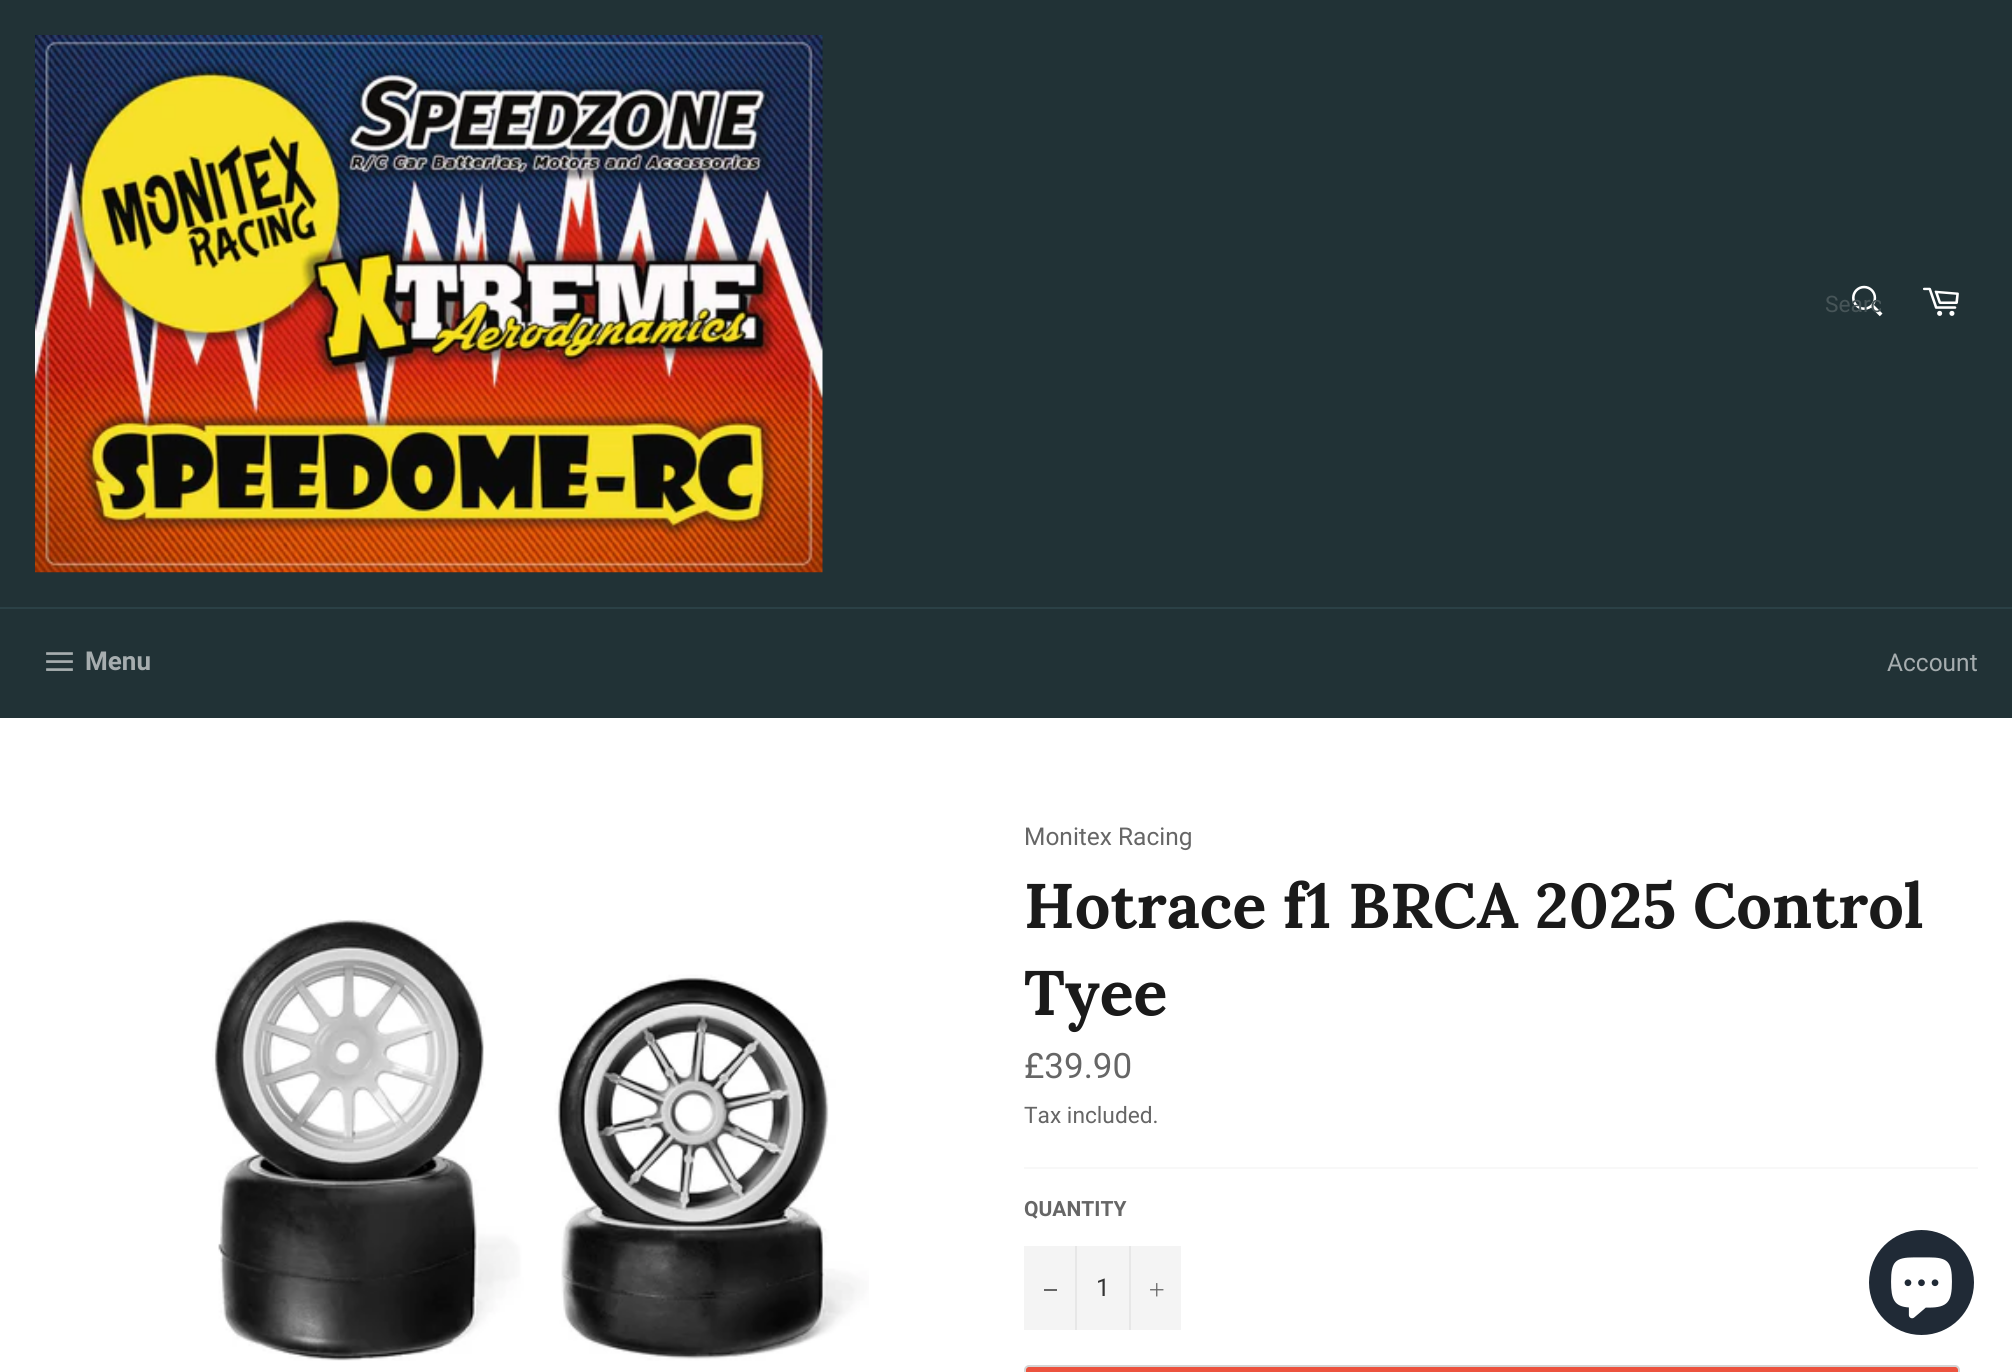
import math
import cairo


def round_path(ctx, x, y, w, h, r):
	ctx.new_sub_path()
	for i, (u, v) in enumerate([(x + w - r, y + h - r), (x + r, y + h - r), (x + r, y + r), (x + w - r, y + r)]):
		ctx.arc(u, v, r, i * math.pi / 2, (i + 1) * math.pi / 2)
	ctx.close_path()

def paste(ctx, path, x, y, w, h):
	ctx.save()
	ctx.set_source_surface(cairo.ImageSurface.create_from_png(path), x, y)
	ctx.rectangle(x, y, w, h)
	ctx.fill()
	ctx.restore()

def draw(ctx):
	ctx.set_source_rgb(0.129, 0.196, 0.212)
	ctx.paint()
	paste(ctx, 'media/1.png', 35, 35, 788, 538)
	paste(ctx, 'media/2.png', 1852, 285, 31, 32)
	ctx.save()
	ctx.rectangle(1825, 291, 56, 26)
	ctx.clip()
	ctx.select_font_face('Roboto')
	ctx.set_font_size(22.75)
	ctx.set_source_rgb(0.278, 0.333, 0.345)
	ctx.move_to(1825, 312)
	ctx.show_text('Searc')
	ctx.restore()
	paste(ctx, 'media/3.png', 1923, 287, 36, 29)
	ctx.set_source_rgb(0.169, 0.255, 0.275)
	ctx.rectangle(0, 607, 2012, 2)
	ctx.fill()
	paste(ctx, 'media/4.png', 46, 652, 27, 19)
	ctx.select_font_face('Roboto', cairo.FONT_SLANT_NORMAL, cairo.FONT_WEIGHT_BOLD)
	ctx.set_font_size(26)
	ctx.set_source_rgb(0.651, 0.678, 0.686)
	ctx.move_to(85, 670)
	ctx.show_text('Menu')
	ctx.select_font_face('Roboto')
	ctx.set_font_size(24.5)
	ctx.move_to(1887, 671)
	ctx.show_text('Account')
	ctx.set_source_rgb(1, 1, 1)
	ctx.rectangle(0, 718, 2012, 654)
	ctx.fill()
	paste(ctx, 'media/5.png', 212, 919, 657, 442)
	ctx.set_source_rgb(0.4, 0.4, 0.4)
	ctx.move_to(1024, 845)
	ctx.show_text('Monitex Racing')
	ctx.select_font_face('Lora', cairo.FONT_SLANT_NORMAL, cairo.FONT_WEIGHT_BOLD)
	ctx.set_font_size(63)
	ctx.set_source_rgb(0.102, 0.102, 0.102)
	ctx.move_to(1024, 928)
	ctx.show_text('Hotrace f1 BRCA 2025 Control')
	ctx.move_to(1024, 1015)
	ctx.show_text('Tyee')
	ctx.select_font_face('Roboto')
	ctx.set_font_size(35)
	ctx.set_source_rgb(0.4, 0.4, 0.4)
	ctx.move_to(1024, 1078)
	ctx.show_text('£39.90')
	ctx.set_font_size(22.75)
	ctx.move_to(1024, 1123)
	ctx.show_text('Tax included.')
	ctx.set_source_rgb(0.969, 0.969, 0.969)
	ctx.rectangle(1024, 1167, 954, 2)
	ctx.fill()
	ctx.select_font_face('Roboto', cairo.FONT_SLANT_NORMAL, cairo.FONT_WEIGHT_BOLD)
	ctx.set_font_size(21)
	ctx.set_source_rgb(0.4, 0.4, 0.4)
	ctx.move_to(1024, 1216)
	ctx.show_text('QUANTITY')
	ctx.set_source_rgb(0.957, 0.957, 0.957)
	ctx.rectangle(1024, 1246, 157, 84)
	ctx.fill()
	ctx.set_source_rgb(0.906, 0.906, 0.906)
	ctx.rectangle(1075, 1246, 2, 84)
	ctx.fill()
	ctx.set_source_rgb(0.4, 0.4, 0.4)
	ctx.rectangle(1044, 1289, 13, 2)
	ctx.fill()
	ctx.select_font_face('Roboto')
	ctx.set_font_size(24.5)
	ctx.set_source_rgb(0.2, 0.2, 0.2)
	ctx.move_to(1096, 1296)
	ctx.show_text('1')
	ctx.set_source_rgb(0.906, 0.906, 0.906)
	ctx.rectangle(1129, 1246, 2, 84)
	ctx.fill()
	paste(ctx, 'media/6.png', 1150, 1283, 14, 14)
	ctx.set_source_rgb(0.925, 0.322, 0.243)
	round_path(ctx, 1025, 1366, 934, 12, 4)
	ctx.fill_preserve()
	ctx.set_source_rgb(0.835, 0.835, 0.835)
	ctx.stroke()
	ctx.set_source_rgb(0.125, 0.165, 0.212)
	ctx.arc(1921.5, 1282.5, 52.5, 0, 2 * math.pi)
	ctx.fill()
	paste(ctx, 'media/7.png', 1891, 1257, 61, 62)


surface = cairo.ImageSurface(cairo.FORMAT_RGB24, 2012, 1372)
ctx = cairo.Context(surface)
options = cairo.FontOptions()
options.set_hint_metrics(cairo.HINT_METRICS_OFF)
options.set_hint_style(cairo.HINT_STYLE_NONE)
ctx.set_font_options(options)
ctx.set_miter_limit(4)
draw(ctx)
surface.write_to_png('image.png')
